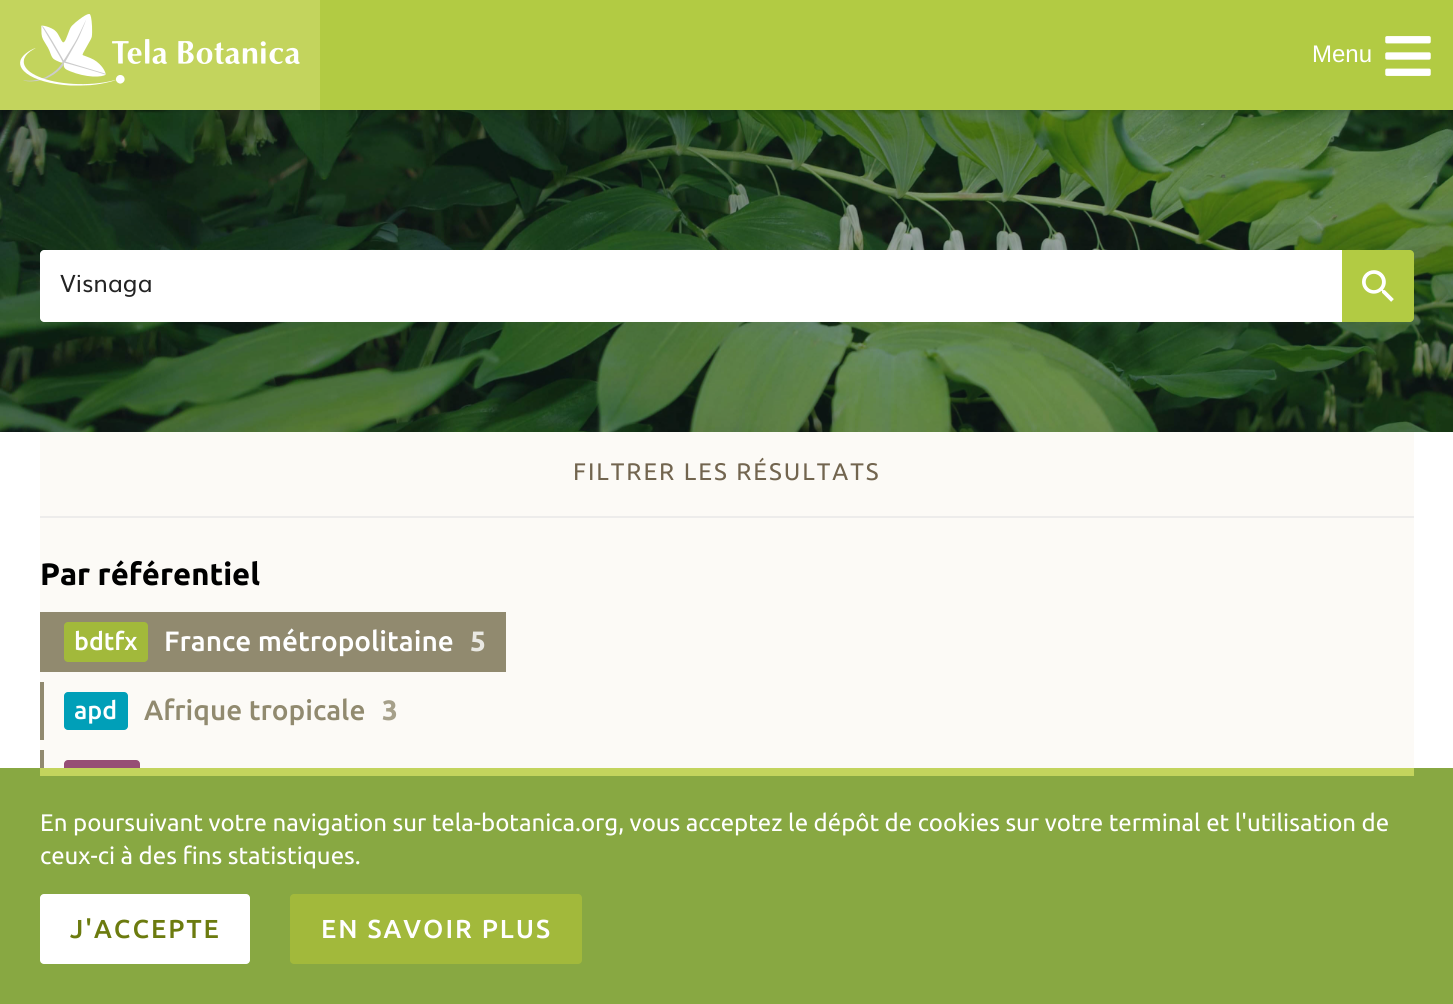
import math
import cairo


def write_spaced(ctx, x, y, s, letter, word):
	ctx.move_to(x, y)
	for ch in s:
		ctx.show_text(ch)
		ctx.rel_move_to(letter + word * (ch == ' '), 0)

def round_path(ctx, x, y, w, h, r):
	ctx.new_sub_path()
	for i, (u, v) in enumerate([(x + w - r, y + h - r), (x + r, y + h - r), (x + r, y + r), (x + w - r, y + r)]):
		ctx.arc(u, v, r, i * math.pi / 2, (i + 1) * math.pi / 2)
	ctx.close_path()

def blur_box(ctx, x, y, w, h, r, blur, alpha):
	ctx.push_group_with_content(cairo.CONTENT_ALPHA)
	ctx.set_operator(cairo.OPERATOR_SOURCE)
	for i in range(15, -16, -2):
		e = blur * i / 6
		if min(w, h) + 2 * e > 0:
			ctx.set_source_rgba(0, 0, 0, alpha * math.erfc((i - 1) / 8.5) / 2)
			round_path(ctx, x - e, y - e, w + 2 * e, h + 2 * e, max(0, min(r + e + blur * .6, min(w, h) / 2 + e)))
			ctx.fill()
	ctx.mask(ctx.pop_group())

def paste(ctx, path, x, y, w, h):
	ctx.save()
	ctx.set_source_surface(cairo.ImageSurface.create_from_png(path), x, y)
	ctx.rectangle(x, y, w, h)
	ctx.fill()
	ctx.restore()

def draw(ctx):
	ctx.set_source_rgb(1, 1, 1)
	ctx.paint()
	paste(ctx, 'media/3.png', 0, 110, 1453, 322)
	ctx.set_source_rgb(0, 0, 0)
	blur_box(ctx, 0, 2, 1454, 110, 0, 2, 0.1)
	ctx.set_source_rgb(0.698, 0.796, 0.263)
	ctx.rectangle(320, 0, 1133, 110)
	ctx.fill()
	ctx.set_source_rgb(0.765, 0.831, 0.365)
	ctx.rectangle(0, 0, 320, 110)
	ctx.fill()
	paste(ctx, 'media/1.png', 20, 14, 280, 72)
	ctx.select_font_face('Liberation Sans')
	ctx.set_font_size(24)
	ctx.set_source_rgb(1, 1, 1)
	ctx.move_to(1312, 62)
	ctx.show_text('Menu')
	paste(ctx, 'media/2.png', 1385, 36, 46, 40)
	ctx.new_path()
	ctx.move_to(44, 250)
	ctx.line_to(1342, 250)
	ctx.line_to(1342, 322)
	ctx.line_to(44, 322)
	ctx.curve_to(42, 322, 40, 320, 40, 318)
	ctx.line_to(40, 254)
	ctx.curve_to(40, 252, 42, 250, 44, 250)
	ctx.close_path()
	ctx.fill()
	ctx.select_font_face('Muli')
	ctx.set_source_rgb(0.137, 0.137, 0.137)
	ctx.move_to(60, 292)
	ctx.show_text('Visnaga')
	ctx.set_source_rgb(0.698, 0.796, 0.263)
	ctx.new_path()
	ctx.move_to(1342, 250)
	ctx.line_to(1410, 250)
	ctx.curve_to(1412, 250, 1414, 252, 1414, 254)
	ctx.line_to(1414, 318)
	ctx.curve_to(1414, 320, 1412, 322, 1410, 322)
	ctx.line_to(1342, 322)
	ctx.close_path()
	ctx.fill()
	paste(ctx, 'media/4.png', 1362, 270, 32, 32)
	ctx.set_source_rgb(0.988, 0.98, 0.961)
	ctx.rectangle(40, 432, 1374, 336)
	ctx.fill()
	ctx.set_source_rgb(0.929, 0.925, 0.918)
	ctx.rectangle(40, 516, 1374, 2)
	ctx.fill()
	ctx.select_font_face('Ubuntu')
	ctx.set_source_rgb(0.447, 0.396, 0.31)
	write_spaced(ctx, 573, 480, 'FILTRER LES RÉSULTATS', 2, 0)
	ctx.select_font_face('Ubuntu', cairo.FONT_SLANT_NORMAL, cairo.FONT_WEIGHT_BOLD)
	ctx.set_font_size(31)
	ctx.set_source_rgb(0, 0, 0)
	ctx.move_to(40, 585)
	ctx.show_text('Par référentiel')
	ctx.set_source_rgb(0.569, 0.541, 0.435)
	ctx.rectangle(40, 612, 466, 60)
	ctx.fill()
	ctx.set_source_rgb(0.635, 0.725, 0.231)
	round_path(ctx, 64, 622, 84, 40, 4)
	ctx.fill()
	ctx.select_font_face('Ubuntu Medium')
	ctx.set_font_size(25)
	ctx.set_source_rgb(1, 1, 1)
	ctx.move_to(74, 650)
	ctx.show_text('bdtfx')
	ctx.set_font_size(28)
	ctx.move_to(164, 651)
	ctx.show_text('France métropolitaine')
	ctx.select_font_face('Ubuntu', cairo.FONT_SLANT_NORMAL, cairo.FONT_WEIGHT_BOLD)
	ctx.set_source_rgb(0.914, 0.91, 0.886)
	ctx.move_to(470, 651)
	ctx.show_text('5')
	ctx.set_source_rgb(0.569, 0.541, 0.435)
	ctx.rectangle(40, 682, 4, 58)
	ctx.fill()
	ctx.set_source_rgb(0, 0.624, 0.722)
	round_path(ctx, 64, 692, 64, 38, 4)
	ctx.fill()
	ctx.select_font_face('Ubuntu Medium')
	ctx.set_font_size(25)
	ctx.set_source_rgb(1, 1, 1)
	ctx.move_to(74, 719)
	ctx.show_text('apd')
	ctx.set_font_size(28)
	ctx.set_source_rgb(0.569, 0.541, 0.435)
	ctx.move_to(144, 720)
	ctx.show_text('Afrique tropicale')
	ctx.select_font_face('Ubuntu', cairo.FONT_SLANT_NORMAL, cairo.FONT_WEIGHT_BOLD)
	ctx.set_source_rgb(0.651, 0.627, 0.541)
	ctx.move_to(382, 720)
	ctx.show_text('3')
	ctx.set_source_rgb(0.569, 0.541, 0.435)
	ctx.rectangle(40, 750, 4, 18)
	ctx.fill()
	ctx.set_source_rgb(0.588, 0.306, 0.459)
	round_path(ctx, 64, 760, 76, 40, 4)
	ctx.fill()
	ctx.set_source_rgb(0.533, 0.659, 0.259)
	ctx.rectangle(0, 768, 1453, 236)
	ctx.fill()
	ctx.set_source_rgb(0.765, 0.831, 0.365)
	ctx.rectangle(40, 768, 1374, 8)
	ctx.fill()
	ctx.select_font_face('Ubuntu')
	ctx.set_font_size(24)
	ctx.set_source_rgb(1, 1, 1)
	ctx.move_to(40, 831)
	ctx.show_text('En poursuivant votre navigation sur tela-botanica.org, vous acceptez le dépôt de cookies sur votre terminal et l\'utilisation de')
	ctx.move_to(40, 864)
	ctx.show_text('ceux-ci à des fins statistiques.')
	round_path(ctx, 40, 894, 210, 70, 4)
	ctx.fill()
	ctx.select_font_face('Ubuntu Medium')
	ctx.set_font_size(26)
	ctx.set_source_rgb(0.424, 0.482, 0.059)
	write_spaced(ctx, 70, 938, 'J\'ACCEPTE', 2, 0)
	ctx.set_source_rgb(0.635, 0.725, 0.231)
	round_path(ctx, 290, 894, 292, 70, 4)
	ctx.fill()
	ctx.set_source_rgb(1, 1, 1)
	write_spaced(ctx, 321, 938, 'EN SAVOIR PLUS', 2, 0)


surface = cairo.ImageSurface(cairo.FORMAT_RGB24, 1453, 1004)
ctx = cairo.Context(surface)
options = cairo.FontOptions()
options.set_hint_metrics(cairo.HINT_METRICS_OFF)
options.set_hint_style(cairo.HINT_STYLE_NONE)
ctx.set_font_options(options)
ctx.set_miter_limit(4)
draw(ctx)
surface.write_to_png('image.png')
